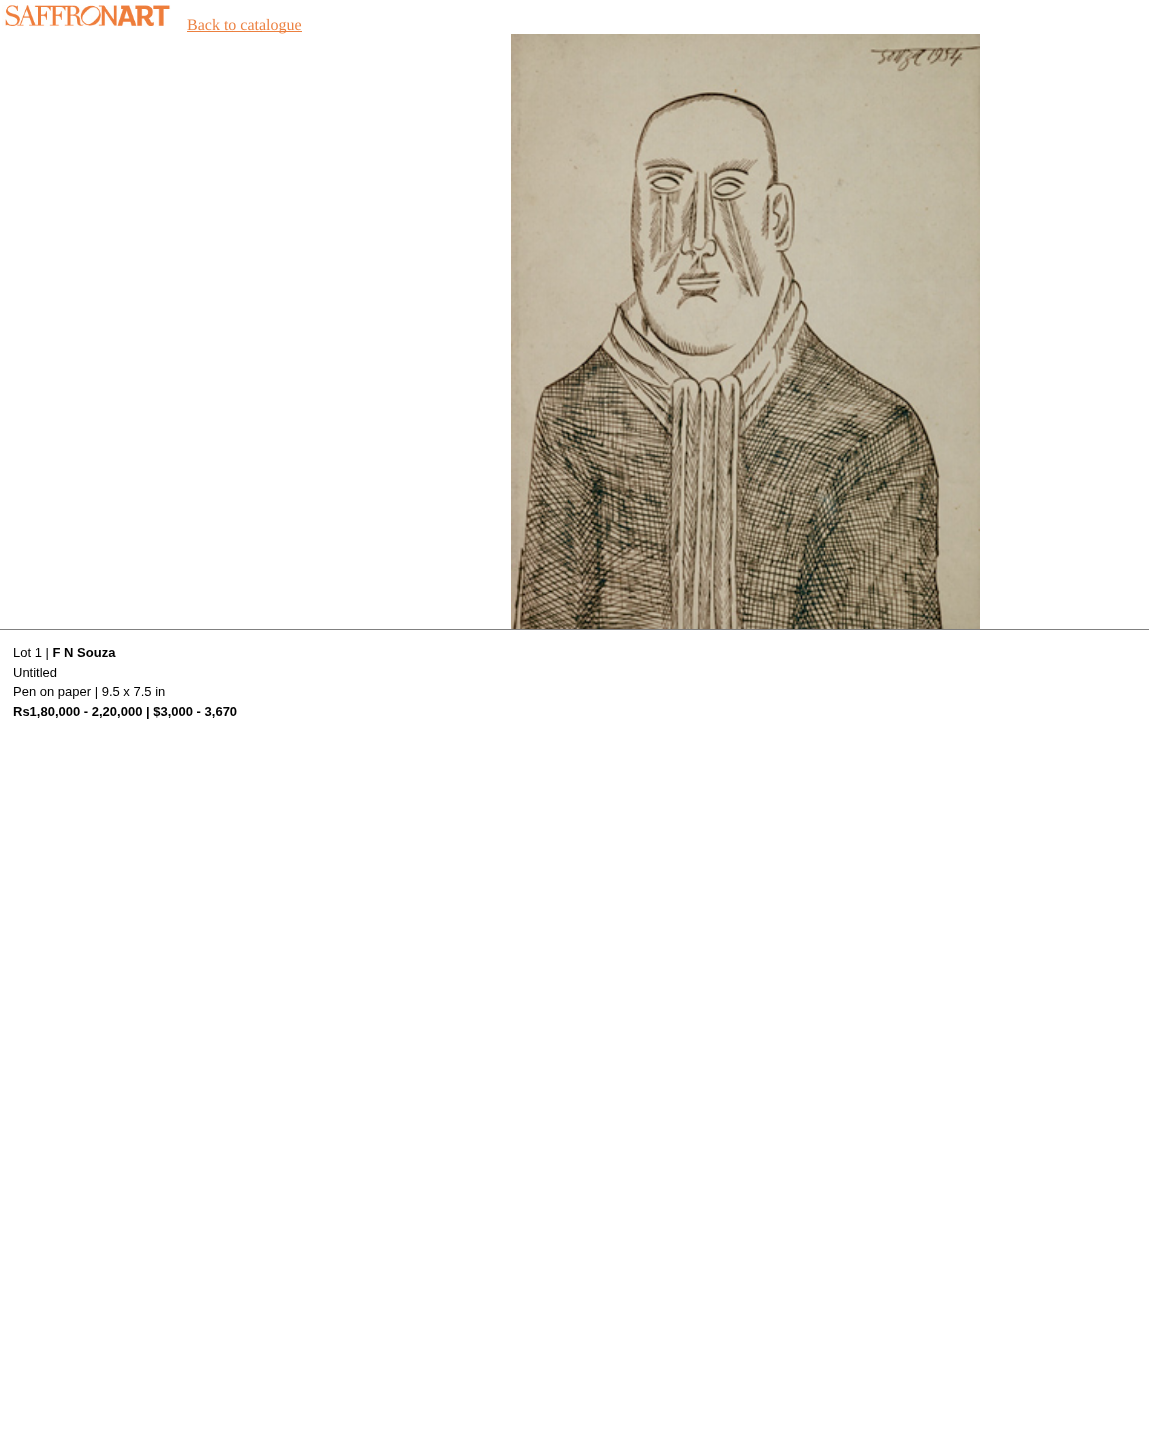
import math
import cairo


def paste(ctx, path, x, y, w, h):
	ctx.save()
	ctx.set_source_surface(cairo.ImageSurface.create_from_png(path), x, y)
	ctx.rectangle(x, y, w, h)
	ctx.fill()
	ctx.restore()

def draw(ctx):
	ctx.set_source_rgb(1, 1, 1)
	ctx.paint()
	paste(ctx, 'media/1.png', 2, 5, 169, 22)
	ctx.set_source_rgb(0.925, 0.502, 0.247)
	ctx.rectangle(187, 31, 115, 1)
	ctx.fill()
	ctx.select_font_face('Liberation Serif')
	ctx.set_font_size(16)
	ctx.move_to(187, 30)
	ctx.show_text('Back to catalogue')
	paste(ctx, 'media/2.png', 0, 34, 1149, 685)


surface = cairo.ImageSurface(cairo.FORMAT_RGB24, 1149, 1444)
ctx = cairo.Context(surface)
options = cairo.FontOptions()
options.set_hint_metrics(cairo.HINT_METRICS_OFF)
options.set_hint_style(cairo.HINT_STYLE_NONE)
ctx.set_font_options(options)
ctx.set_miter_limit(4)
draw(ctx)
surface.write_to_png('image.png')
